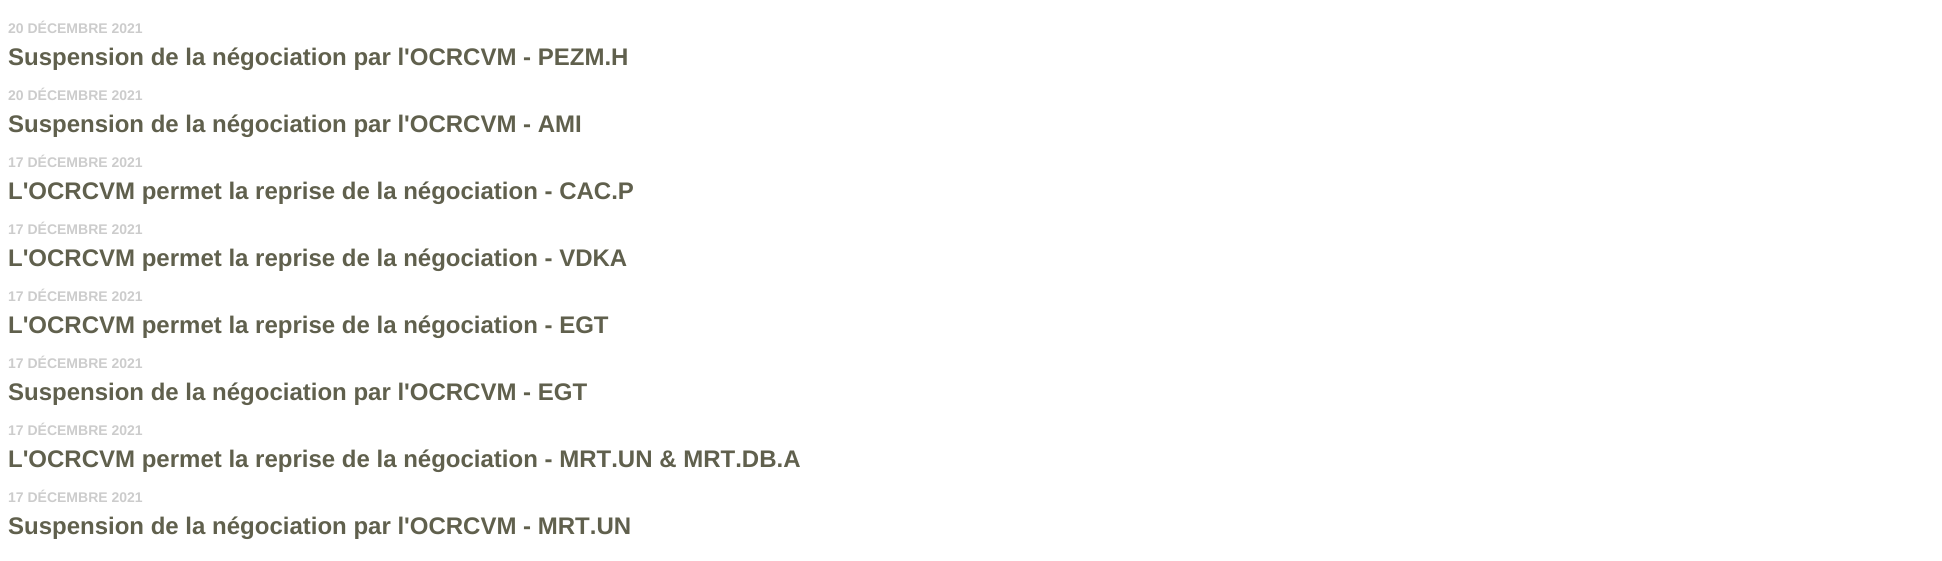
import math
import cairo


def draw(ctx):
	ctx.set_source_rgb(1, 1, 1)
	ctx.paint()
	ctx.select_font_face('Liberation Sans', cairo.FONT_SLANT_NORMAL, cairo.FONT_WEIGHT_BOLD)
	ctx.set_font_size(14)
	ctx.set_source_rgb(0.8, 0.8, 0.8)
	ctx.move_to(8, 33)
	ctx.show_text('20 DÉCEMBRE 2021')
	ctx.set_font_size(24)
	ctx.set_source_rgb(0.376, 0.376, 0.302)
	ctx.move_to(8, 65)
	ctx.show_text('Suspension de la négociation par l\'OCRCVM - PEZM.H')
	ctx.set_font_size(14)
	ctx.set_source_rgb(0.8, 0.8, 0.8)
	ctx.move_to(8, 100)
	ctx.show_text('20 DÉCEMBRE 2021')
	ctx.set_font_size(24)
	ctx.set_source_rgb(0.376, 0.376, 0.302)
	ctx.move_to(8, 132)
	ctx.show_text('Suspension de la négociation par l\'OCRCVM - AMI')
	ctx.set_font_size(14)
	ctx.set_source_rgb(0.8, 0.8, 0.8)
	ctx.move_to(8, 167)
	ctx.show_text('17 DÉCEMBRE 2021')
	ctx.set_font_size(24)
	ctx.set_source_rgb(0.376, 0.376, 0.302)
	ctx.move_to(8, 199)
	ctx.show_text('L\'OCRCVM permet la reprise de la négociation - CAC.P')
	ctx.set_font_size(14)
	ctx.set_source_rgb(0.8, 0.8, 0.8)
	ctx.move_to(8, 234)
	ctx.show_text('17 DÉCEMBRE 2021')
	ctx.set_font_size(24)
	ctx.set_source_rgb(0.376, 0.376, 0.302)
	ctx.move_to(8, 266)
	ctx.show_text('L\'OCRCVM permet la reprise de la négociation - VDKA')
	ctx.set_font_size(14)
	ctx.set_source_rgb(0.8, 0.8, 0.8)
	ctx.move_to(8, 301)
	ctx.show_text('17 DÉCEMBRE 2021')
	ctx.set_font_size(24)
	ctx.set_source_rgb(0.376, 0.376, 0.302)
	ctx.move_to(8, 333)
	ctx.show_text('L\'OCRCVM permet la reprise de la négociation - EGT')
	ctx.set_font_size(14)
	ctx.set_source_rgb(0.8, 0.8, 0.8)
	ctx.move_to(8, 368)
	ctx.show_text('17 DÉCEMBRE 2021')
	ctx.set_font_size(24)
	ctx.set_source_rgb(0.376, 0.376, 0.302)
	ctx.move_to(8, 400)
	ctx.show_text('Suspension de la négociation par l\'OCRCVM - EGT')
	ctx.set_font_size(14)
	ctx.set_source_rgb(0.8, 0.8, 0.8)
	ctx.move_to(8, 435)
	ctx.show_text('17 DÉCEMBRE 2021')
	ctx.set_font_size(24)
	ctx.set_source_rgb(0.376, 0.376, 0.302)
	ctx.move_to(8, 467)
	ctx.show_text('L\'OCRCVM permet la reprise de la négociation - MRT.UN & MRT.DB.A')
	ctx.set_font_size(14)
	ctx.set_source_rgb(0.8, 0.8, 0.8)
	ctx.move_to(8, 502)
	ctx.show_text('17 DÉCEMBRE 2021')
	ctx.set_font_size(24)
	ctx.set_source_rgb(0.376, 0.376, 0.302)
	ctx.move_to(8, 534)
	ctx.show_text('Suspension de la négociation par l\'OCRCVM - MRT.UN')


surface = cairo.ImageSurface(cairo.FORMAT_RGB24, 1942, 561)
ctx = cairo.Context(surface)
options = cairo.FontOptions()
options.set_hint_metrics(cairo.HINT_METRICS_OFF)
options.set_hint_style(cairo.HINT_STYLE_NONE)
ctx.set_font_options(options)
ctx.set_miter_limit(4)
draw(ctx)
surface.write_to_png('image.png')
